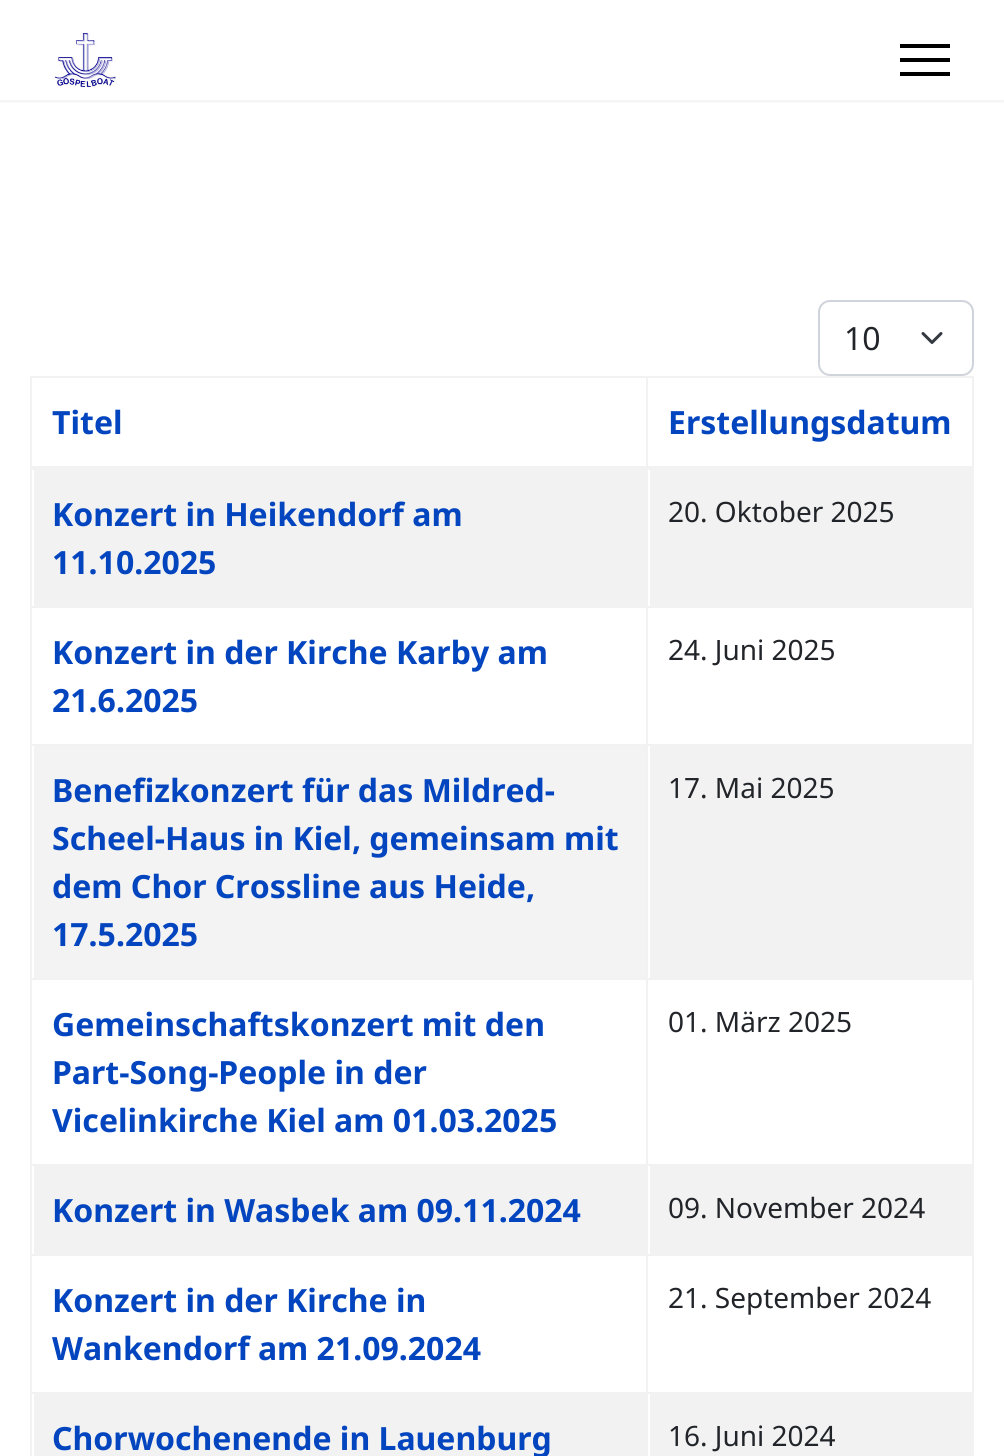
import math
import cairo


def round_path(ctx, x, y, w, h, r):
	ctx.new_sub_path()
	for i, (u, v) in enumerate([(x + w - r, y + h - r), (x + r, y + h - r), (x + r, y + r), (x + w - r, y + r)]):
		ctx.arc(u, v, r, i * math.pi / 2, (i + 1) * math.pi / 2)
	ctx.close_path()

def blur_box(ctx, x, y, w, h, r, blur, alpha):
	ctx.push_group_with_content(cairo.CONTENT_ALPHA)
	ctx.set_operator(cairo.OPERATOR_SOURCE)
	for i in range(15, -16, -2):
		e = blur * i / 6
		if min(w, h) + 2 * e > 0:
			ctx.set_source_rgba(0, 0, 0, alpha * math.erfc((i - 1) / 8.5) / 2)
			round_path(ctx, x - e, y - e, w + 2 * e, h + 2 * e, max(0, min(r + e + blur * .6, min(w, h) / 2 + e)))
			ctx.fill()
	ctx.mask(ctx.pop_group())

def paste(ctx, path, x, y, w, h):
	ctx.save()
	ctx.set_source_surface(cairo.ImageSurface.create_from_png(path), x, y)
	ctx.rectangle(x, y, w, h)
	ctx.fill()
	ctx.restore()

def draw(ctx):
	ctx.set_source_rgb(1, 1, 1)
	ctx.paint()
	ctx.save()
	ctx.rectangle(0, 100, 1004, 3)
	ctx.clip()
	ctx.set_source_rgb(0, 0, 0)
	blur_box(ctx, 0, 0, 1004, 100, 0, 4, 0.1)
	ctx.restore()
	paste(ctx, 'media/1.png', 54, 33, 62, 55)
	ctx.set_source_rgb(0, 0, 0)
	ctx.rectangle(900, 44, 50, 4)
	ctx.rectangle(900, 58, 50, 4)
	ctx.rectangle(900, 72, 50, 4)
	ctx.fill()
	ctx.new_path()
	ctx.move_to(923, 333.5)
	ctx.line_to(932, 342.5)
	ctx.line_to(941, 333.5)
	ctx.set_source_rgb(0.204, 0.227, 0.251)
	ctx.set_line_width(3)
	ctx.set_line_cap(cairo.LINE_CAP_ROUND)
	ctx.set_line_join(cairo.LINE_JOIN_ROUND)
	ctx.stroke()
	round_path(ctx, 819, 301, 154, 74, 11)
	ctx.set_source_rgb(0.808, 0.831, 0.855)
	ctx.set_line_width(2)
	ctx.set_line_cap(cairo.LINE_CAP_BUTT)
	ctx.set_line_join(cairo.LINE_JOIN_MITER)
	ctx.stroke()
	ctx.select_font_face('Noto Sans')
	ctx.set_font_size(32)
	ctx.set_source_rgb(0.129, 0.145, 0.161)
	ctx.move_to(844, 350)
	ctx.show_text('10')
	ctx.set_source_rgb(0.949, 0.949, 0.949)
	ctx.rectangle(30, 376, 944, 2)
	ctx.rectangle(972, 376, 2, 92)
	ctx.rectangle(30, 466, 944, 2)
	ctx.rectangle(30, 376, 2, 92)
	ctx.fill()
	ctx.select_font_face('Noto Sans', cairo.FONT_SLANT_NORMAL, cairo.FONT_WEIGHT_BOLD)
	ctx.set_source_rgb(0.012, 0.271, 0.749)
	ctx.move_to(52, 434)
	ctx.show_text('Titel')
	ctx.move_to(668, 434)
	ctx.show_text('Erstellungsdatum')
	ctx.set_source_rgb(0.949, 0.949, 0.949)
	ctx.rectangle(30, 468, 944, 2)
	ctx.rectangle(30, 606, 944, 2)
	ctx.rectangle(30, 744, 944, 2)
	ctx.rectangle(30, 978, 944, 2)
	ctx.rectangle(30, 1164, 944, 2)
	ctx.rectangle(30, 1254, 944, 2)
	ctx.rectangle(30, 1392, 944, 2)
	ctx.rectangle(972, 1392, 2, 64)
	ctx.rectangle(972, 1254, 2, 140)
	ctx.rectangle(972, 1164, 2, 92)
	ctx.rectangle(972, 978, 2, 188)
	ctx.rectangle(972, 744, 2, 236)
	ctx.rectangle(972, 606, 2, 140)
	ctx.rectangle(972, 468, 2, 140)
	ctx.rectangle(30, 1392, 2, 64)
	ctx.rectangle(30, 1254, 2, 140)
	ctx.rectangle(30, 1164, 2, 92)
	ctx.rectangle(30, 978, 2, 188)
	ctx.rectangle(30, 744, 2, 236)
	ctx.rectangle(30, 606, 2, 140)
	ctx.rectangle(30, 468, 2, 140)
	ctx.rectangle(34, 470, 612, 136)
	ctx.fill()
	ctx.set_source_rgb(0.012, 0.271, 0.749)
	ctx.move_to(52, 526)
	ctx.show_text('Konzert in Heikendorf am')
	ctx.move_to(52, 574)
	ctx.show_text('11.10.2025')
	ctx.set_source_rgb(0.949, 0.949, 0.949)
	ctx.rectangle(650, 470, 322, 136)
	ctx.fill()
	ctx.select_font_face('Noto Sans')
	ctx.set_font_size(28)
	ctx.set_source_rgb(0.129, 0.145, 0.161)
	ctx.move_to(668, 522)
	ctx.show_text('20. Oktober 2025')
	ctx.select_font_face('Noto Sans', cairo.FONT_SLANT_NORMAL, cairo.FONT_WEIGHT_BOLD)
	ctx.set_font_size(32)
	ctx.set_source_rgb(0.012, 0.271, 0.749)
	ctx.move_to(52, 664)
	ctx.show_text('Konzert in der Kirche Karby am')
	ctx.move_to(52, 712)
	ctx.show_text('21.6.2025')
	ctx.select_font_face('Noto Sans')
	ctx.set_font_size(28)
	ctx.set_source_rgb(0.129, 0.145, 0.161)
	ctx.move_to(668, 660)
	ctx.show_text('24. Juni 2025')
	ctx.set_source_rgb(0.953, 0.953, 0.953)
	ctx.rectangle(34, 746, 612, 232)
	ctx.fill()
	ctx.select_font_face('Noto Sans', cairo.FONT_SLANT_NORMAL, cairo.FONT_WEIGHT_BOLD)
	ctx.set_font_size(32)
	ctx.set_source_rgb(0.012, 0.271, 0.749)
	for x, y, s in [
		(52, 802, 'Benefizkonzert für das Mildred-'),
		(52, 850, 'Scheel-Haus in Kiel, gemeinsam mit'),
		(52, 898, 'dem Chor Crossline aus Heide,'),
		(52, 946, '17.5.2025'),
	]:
		ctx.move_to(x, y)
		ctx.show_text(s)
	ctx.set_source_rgb(0.949, 0.949, 0.949)
	ctx.rectangle(650, 746, 322, 232)
	ctx.fill()
	ctx.select_font_face('Noto Sans')
	ctx.set_font_size(28)
	ctx.set_source_rgb(0.129, 0.145, 0.161)
	ctx.move_to(668, 798)
	ctx.show_text('17. Mai 2025')
	ctx.select_font_face('Noto Sans', cairo.FONT_SLANT_NORMAL, cairo.FONT_WEIGHT_BOLD)
	ctx.set_font_size(32)
	ctx.set_source_rgb(0.012, 0.271, 0.749)
	for x, y, s in [
		(52, 1036, 'Gemeinschaftskonzert mit den'),
		(52, 1084, 'Part-Song-People in der'),
		(52, 1132, 'Vicelinkirche Kiel am 01.03.2025'),
	]:
		ctx.move_to(x, y)
		ctx.show_text(s)
	ctx.select_font_face('Noto Sans')
	ctx.set_font_size(28)
	ctx.set_source_rgb(0.129, 0.145, 0.161)
	ctx.move_to(668, 1032)
	ctx.show_text('01. März 2025')
	ctx.set_source_rgb(0.949, 0.949, 0.949)
	ctx.rectangle(34, 1166, 612, 88)
	ctx.fill()
	ctx.select_font_face('Noto Sans', cairo.FONT_SLANT_NORMAL, cairo.FONT_WEIGHT_BOLD)
	ctx.set_font_size(32)
	ctx.set_source_rgb(0.012, 0.271, 0.749)
	ctx.move_to(52, 1222)
	ctx.show_text('Konzert in Wasbek am 09.11.2024')
	ctx.set_source_rgb(0.949, 0.949, 0.949)
	ctx.rectangle(650, 1166, 322, 88)
	ctx.fill()
	ctx.select_font_face('Noto Sans')
	ctx.set_font_size(28)
	ctx.set_source_rgb(0.129, 0.145, 0.161)
	ctx.move_to(668, 1218)
	ctx.show_text('09. November 2024')
	ctx.select_font_face('Noto Sans', cairo.FONT_SLANT_NORMAL, cairo.FONT_WEIGHT_BOLD)
	ctx.set_font_size(32)
	ctx.set_source_rgb(0.012, 0.271, 0.749)
	ctx.move_to(52, 1312)
	ctx.show_text('Konzert in der Kirche in')
	ctx.move_to(52, 1360)
	ctx.show_text('Wankendorf am 21.09.2024')
	ctx.select_font_face('Noto Sans')
	ctx.set_font_size(28)
	ctx.set_source_rgb(0.129, 0.145, 0.161)
	ctx.move_to(668, 1308)
	ctx.show_text('21. September 2024')
	ctx.set_source_rgb(0.949, 0.949, 0.949)
	ctx.rectangle(34, 1394, 612, 62)
	ctx.fill()
	ctx.select_font_face('Noto Sans', cairo.FONT_SLANT_NORMAL, cairo.FONT_WEIGHT_BOLD)
	ctx.set_font_size(32)
	ctx.set_source_rgb(0.012, 0.271, 0.749)
	ctx.move_to(52, 1450)
	ctx.show_text('Chorwochenende in Lauenburg')
	ctx.set_source_rgb(0.949, 0.949, 0.949)
	ctx.rectangle(650, 1394, 322, 62)
	ctx.fill()
	ctx.rectangle(646, 376, 2, 1080)
	ctx.fill()
	ctx.select_font_face('Noto Sans')
	ctx.set_font_size(28)
	ctx.set_source_rgb(0.129, 0.145, 0.161)
	ctx.move_to(668, 1446)
	ctx.show_text('16. Juni 2024')


surface = cairo.ImageSurface(cairo.FORMAT_RGB24, 1004, 1456)
ctx = cairo.Context(surface)
options = cairo.FontOptions()
options.set_hint_metrics(cairo.HINT_METRICS_OFF)
options.set_hint_style(cairo.HINT_STYLE_NONE)
ctx.set_font_options(options)
ctx.set_miter_limit(4)
draw(ctx)
surface.write_to_png('image.png')
